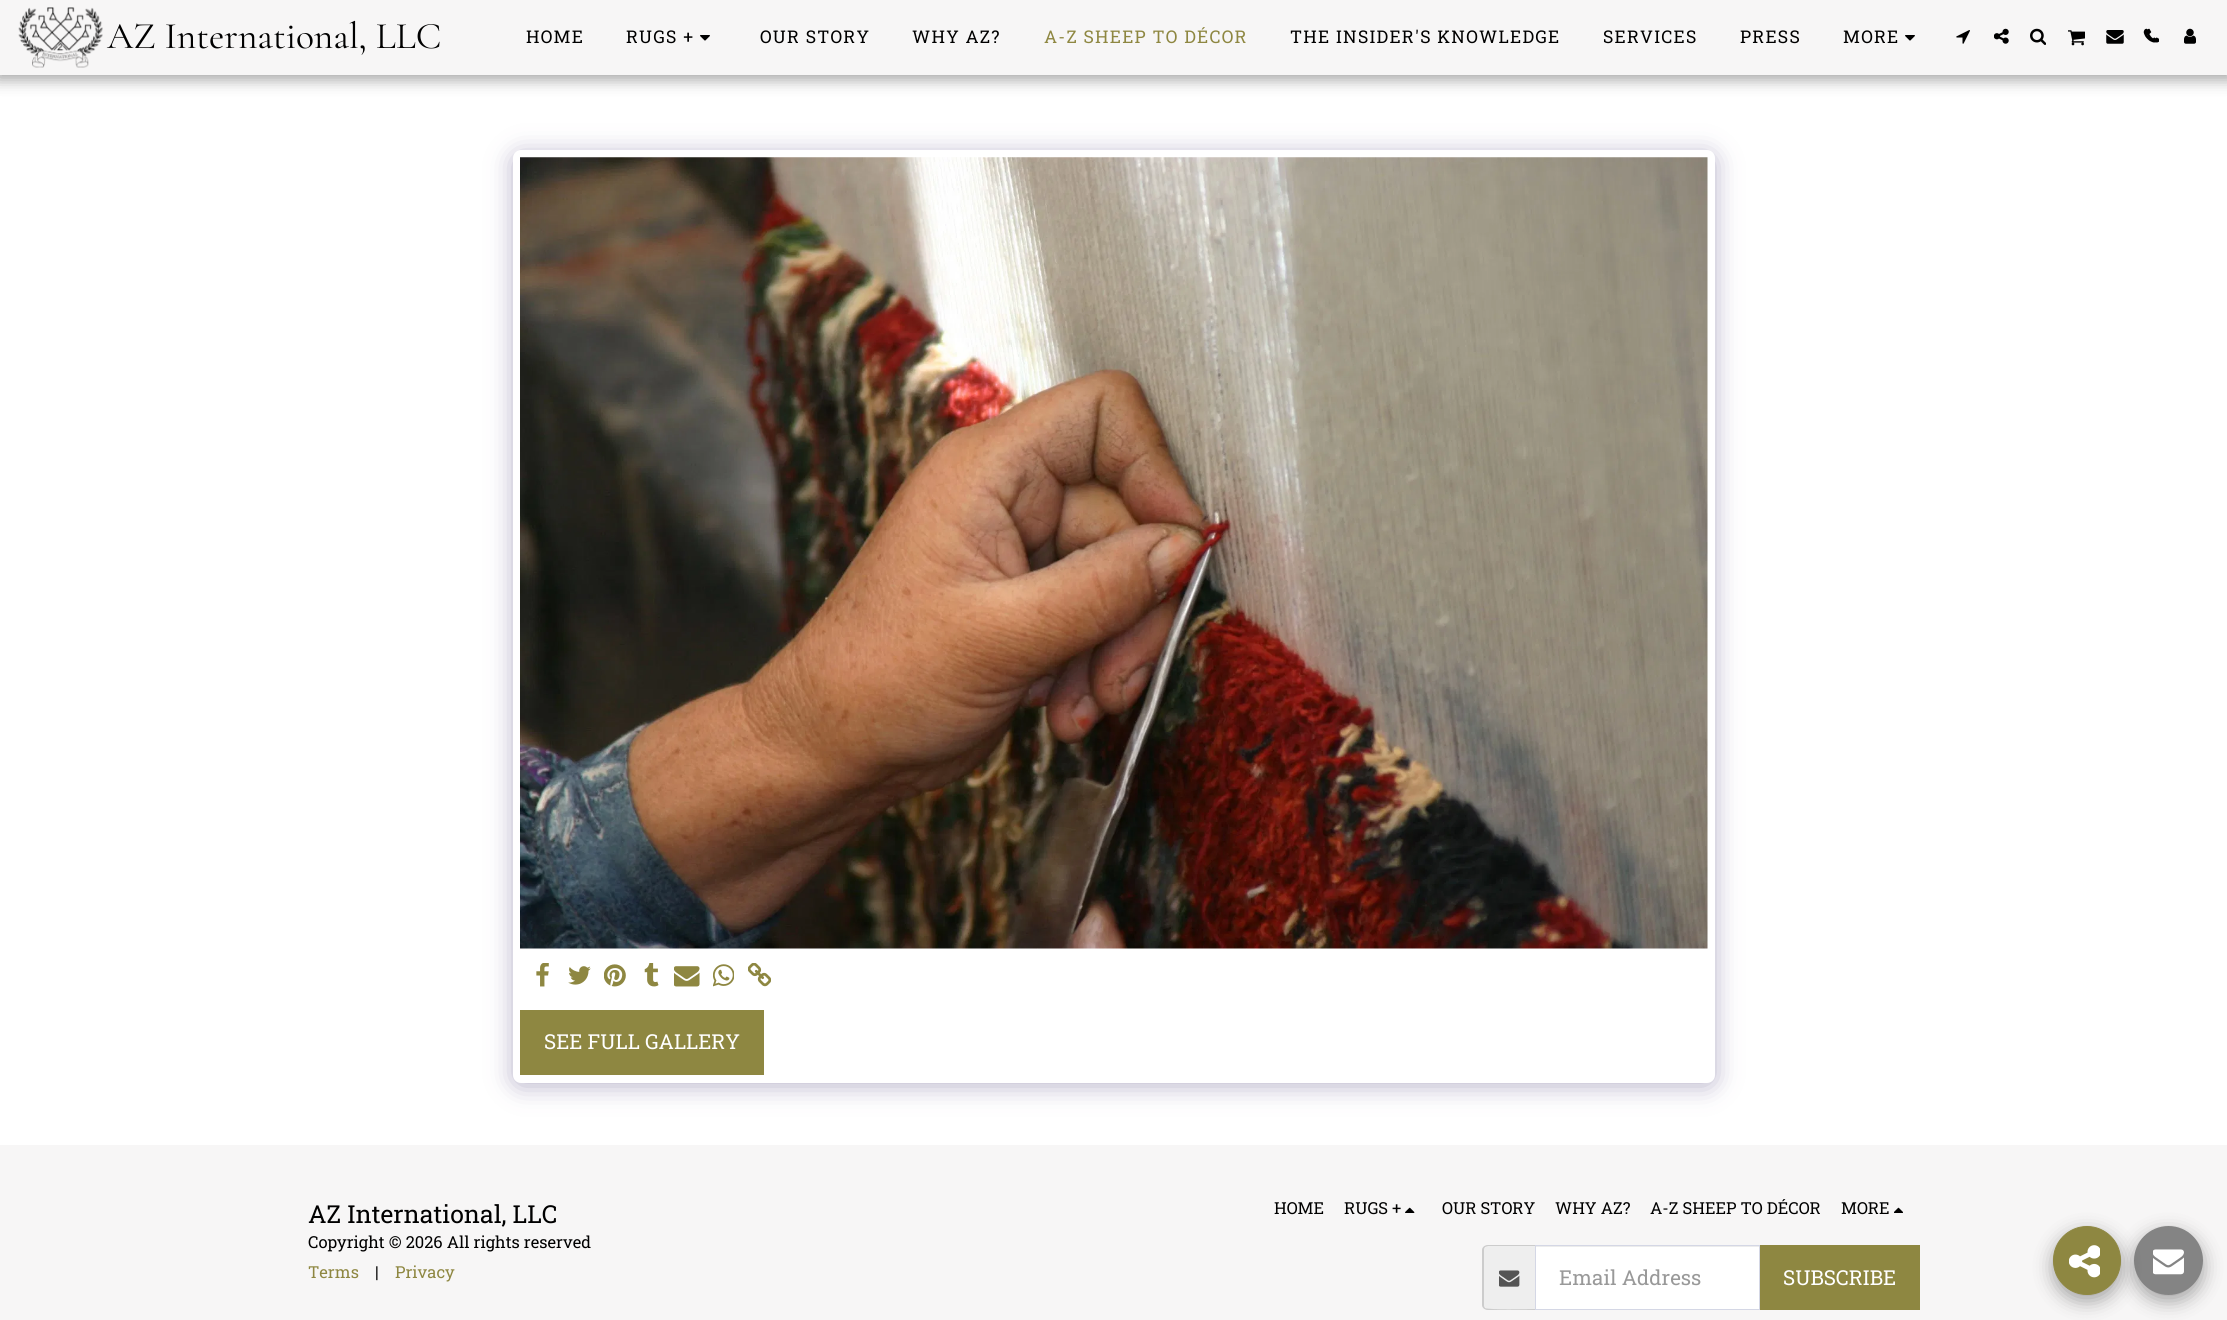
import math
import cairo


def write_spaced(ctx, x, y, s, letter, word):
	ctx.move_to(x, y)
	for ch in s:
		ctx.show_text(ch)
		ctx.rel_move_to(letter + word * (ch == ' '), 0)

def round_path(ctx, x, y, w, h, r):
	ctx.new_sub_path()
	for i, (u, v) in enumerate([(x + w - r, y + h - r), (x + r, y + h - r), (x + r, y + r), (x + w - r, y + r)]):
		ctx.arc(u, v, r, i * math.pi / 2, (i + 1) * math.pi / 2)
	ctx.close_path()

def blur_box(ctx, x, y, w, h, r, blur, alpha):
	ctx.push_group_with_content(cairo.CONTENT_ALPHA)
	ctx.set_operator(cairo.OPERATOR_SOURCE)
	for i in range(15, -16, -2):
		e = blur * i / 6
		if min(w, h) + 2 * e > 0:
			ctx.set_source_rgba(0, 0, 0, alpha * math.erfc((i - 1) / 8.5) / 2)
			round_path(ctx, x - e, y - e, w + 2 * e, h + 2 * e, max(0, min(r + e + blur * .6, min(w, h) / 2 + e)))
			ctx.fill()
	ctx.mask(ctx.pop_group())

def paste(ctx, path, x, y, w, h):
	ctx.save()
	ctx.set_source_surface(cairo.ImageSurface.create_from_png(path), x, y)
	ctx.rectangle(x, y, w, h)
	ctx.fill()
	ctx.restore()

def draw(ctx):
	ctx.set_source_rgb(1, 1, 1)
	ctx.paint()
	ctx.set_source_rgb(0, 0, 0)
	blur_box(ctx, -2, 0, 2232, 80, 0, 7.5, 0.35)
	ctx.set_source_rgb(0.965, 0.961, 0.961)
	ctx.rectangle(0, 0, 2227, 75)
	ctx.fill()
	paste(ctx, 'media/1.png', 18, 7, 85, 61)
	ctx.select_font_face('Cormorant Garamond')
	ctx.set_font_size(37.5)
	ctx.set_source_rgb(0, 0, 0)
	ctx.move_to(107, 48)
	ctx.show_text('AZ International, LLC')
	ctx.select_font_face('Roboto Slab')
	ctx.set_font_size(17.5)
	write_spaced(ctx, 526, 43, 'HOME', 1.25, 0)
	write_spaced(ctx, 626, 43, 'RUGS +', 1.25, 0)
	paste(ctx, 'media/2.png', 700, 35, 10, 6)
	write_spaced(ctx, 760, 43, 'OUR STORY', 1.25, 0)
	write_spaced(ctx, 912, 43, 'WHY AZ?', 1.25, 0)
	ctx.set_source_rgb(0.557, 0.529, 0.255)
	write_spaced(ctx, 1044, 43, 'A-Z SHEEP TO DÉCOR', 1.25, 0)
	ctx.set_source_rgb(0, 0, 0)
	for x, y, s in [
		(1290, 43, 'THE INSIDER\'S KNOWLEDGE'),
		(1603, 43, 'SERVICES'),
		(1740, 43, 'PRESS'),
		(1843, 43, 'MORE'),
	]:
		write_spaced(ctx, x, y, s, 1.25, 0)
	paste(ctx, 'media/2.png', 1905, 35, 10, 6)
	paste(ctx, 'media/3.png', 1956, 30, 14, 14)
	paste(ctx, 'media/4.png', 1994, 28, 15, 16)
	paste(ctx, 'media/5.png', 2030, 28, 16, 17)
	paste(ctx, 'media/6.png', 2068, 30, 17, 16)
	paste(ctx, 'media/7.png', 2106, 30, 18, 14)
	paste(ctx, 'media/8.png', 2147, 28, 12, 15)
	paste(ctx, 'media/9.png', 2143, 28, 13, 15)
	paste(ctx, 'media/10.png', 2184, 28, 12, 16)
	ctx.set_source_rgb(0.302, 0.247, 0.478)
	blur_box(ctx, 513, 154, 1202, 932, 8, 12.5, 0.4)
	ctx.set_source_rgb(1, 1, 1)
	round_path(ctx, 513, 150, 1202, 933, 8)
	ctx.fill()
	paste(ctx, 'media/11.png', 520, 157, 1188, 792)
	paste(ctx, 'media/12.png', 536, 963, 13, 24)
	paste(ctx, 'media/13.png', 568, 966, 23, 19)
	paste(ctx, 'media/14.png', 604, 964, 22, 23)
	paste(ctx, 'media/15.png', 644, 963, 15, 24)
	paste(ctx, 'media/16.png', 674, 966, 26, 21)
	paste(ctx, 'media/17.png', 713, 964, 21, 23)
	paste(ctx, 'media/18.png', 748, 963, 23, 24)
	ctx.set_source_rgb(0.557, 0.529, 0.255)
	ctx.rectangle(520, 1010, 244, 65)
	ctx.fill()
	ctx.set_font_size(20.6)
	ctx.set_source_rgb(1, 1, 1)
	ctx.move_to(544, 1049)
	ctx.show_text('SEE FULL GALLERY')
	ctx.set_source_rgb(0.965, 0.961, 0.961)
	ctx.rectangle(0, 1145, 2227, 175)
	ctx.fill()
	ctx.set_font_size(24.75)
	ctx.set_source_rgb(0, 0, 0)
	ctx.move_to(308, 1223)
	ctx.show_text('AZ International, LLC')
	ctx.set_font_size(16.5)
	ctx.move_to(308, 1248)
	ctx.show_text('Copyright © 2026 All rights reserved')
	ctx.set_source_rgb(0.557, 0.529, 0.255)
	ctx.move_to(308, 1278)
	ctx.show_text('Terms')
	ctx.set_source_rgb(0, 0, 0)
	ctx.move_to(375, 1278)
	ctx.show_text('|')
	ctx.set_source_rgb(0.557, 0.529, 0.255)
	ctx.move_to(395, 1278)
	ctx.show_text('Privacy')
	ctx.set_source_rgb(0, 0, 0)
	ctx.move_to(1274, 1214)
	ctx.show_text('HOME')
	ctx.move_to(1344, 1214)
	ctx.show_text('RUGS +')
	paste(ctx, 'media/19.png', 1405, 1207, 10, 6)
	for x, y, s in [
		(1442, 1214, 'OUR STORY'),
		(1555, 1214, 'WHY AZ?'),
		(1650, 1214, 'A-Z SHEEP TO DÉCOR'),
		(1841, 1214, 'MORE'),
	]:
		ctx.move_to(x, y)
		ctx.show_text(s)
	paste(ctx, 'media/20.png', 1894, 1207, 9, 6)
	ctx.set_source_rgb(0.933, 0.933, 0.933)
	ctx.new_path()
	ctx.move_to(1488, 1246)
	ctx.line_to(1535, 1246)
	ctx.line_to(1535, 1309)
	ctx.line_to(1488, 1309)
	ctx.curve_to(1486, 1309, 1484, 1307, 1484, 1305)
	ctx.line_to(1484, 1250)
	ctx.curve_to(1484, 1248, 1486, 1246, 1488, 1246)
	ctx.close_path()
	ctx.fill()
	ctx.set_source_rgb(0.8, 0.8, 0.8)
	ctx.set_fill_rule(cairo.FILL_RULE_EVEN_ODD)
	ctx.new_path()
	ctx.move_to(1488, 1245)
	ctx.line_to(1535, 1245)
	ctx.line_to(1535, 1310)
	ctx.line_to(1488, 1310)
	ctx.curve_to(1485, 1310, 1482, 1308, 1482, 1305)
	ctx.line_to(1482, 1250)
	ctx.curve_to(1482, 1247, 1485, 1245, 1488, 1245)
	ctx.close_path()
	ctx.move_to(1488, 1246)
	ctx.line_to(1535, 1246)
	ctx.line_to(1535, 1309)
	ctx.curve_to(1529, 1309, 1488, 1310, 1485, 1308)
	ctx.line_to(1484, 1306)
	ctx.line_to(1484, 1249)
	ctx.line_to(1485, 1247)
	ctx.close_path()
	ctx.fill()
	paste(ctx, 'media/21.png', 1499, 1270, 21, 17)
	ctx.set_source_rgb(1, 1, 1)
	ctx.rectangle(1536, 1247, 223, 62)
	ctx.fill()
	ctx.set_source_rgb(0.925, 0.925, 0.925)
	ctx.rectangle(1536, 1246, 223, 1)
	ctx.fill()
	ctx.rectangle(1535.5, 1245.5, 224, 64)
	ctx.set_source_rgb(0.831, 0.843, 0.898)
	ctx.set_line_width(1)
	ctx.stroke()
	ctx.set_font_size(20.6)
	ctx.set_source_rgb(0.6, 0.6, 0.6)
	ctx.move_to(1559, 1285)
	ctx.show_text('Email Address')
	ctx.set_source_rgb(0.557, 0.529, 0.255)
	ctx.rectangle(1760, 1245, 160, 65)
	ctx.fill()
	ctx.set_source_rgb(1, 1, 1)
	ctx.move_to(1783, 1285)
	ctx.show_text('SUBSCRIBE')
	ctx.set_source_rgb(0, 0, 0)
	blur_box(ctx, 2134, 1233, 69, 68, 34, 9.5, 0.35)
	ctx.set_source_rgb(0.518, 0.518, 0.518)
	ctx.arc(2168.5, 1260.5, 34.5, 0, 2 * math.pi)
	ctx.fill()
	ctx.set_source_rgb(0, 0, 0)
	blur_box(ctx, 2053, 1233, 68, 68, 34, 9.5, 0.35)
	ctx.set_source_rgb(0.557, 0.529, 0.255)
	round_path(ctx, 2053.5, 1226.5, 67, 68, 33.5)
	ctx.fill_preserve()
	ctx.stroke()
	paste(ctx, 'media/22.png', 2069, 1245, 31, 33)
	paste(ctx, 'media/23.png', 2153, 1249, 31, 26)


surface = cairo.ImageSurface(cairo.FORMAT_RGB24, 2227, 1320)
ctx = cairo.Context(surface)
options = cairo.FontOptions()
options.set_hint_metrics(cairo.HINT_METRICS_OFF)
options.set_hint_style(cairo.HINT_STYLE_NONE)
ctx.set_font_options(options)
ctx.set_miter_limit(4)
draw(ctx)
surface.write_to_png('image.png')
